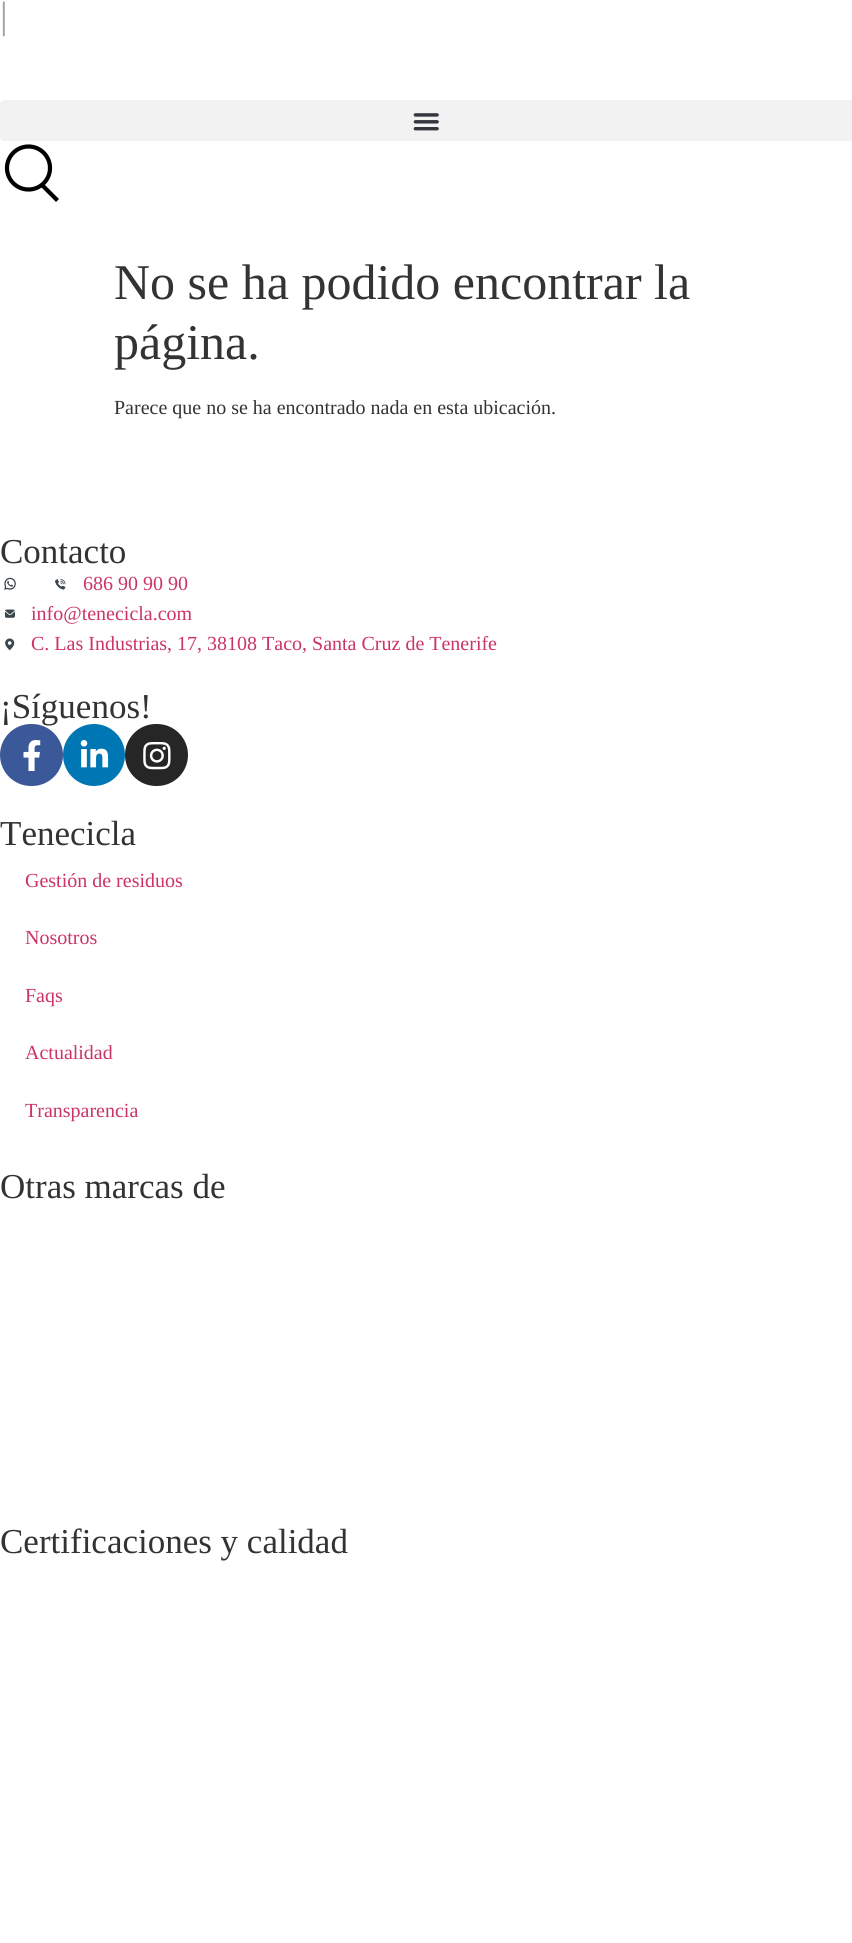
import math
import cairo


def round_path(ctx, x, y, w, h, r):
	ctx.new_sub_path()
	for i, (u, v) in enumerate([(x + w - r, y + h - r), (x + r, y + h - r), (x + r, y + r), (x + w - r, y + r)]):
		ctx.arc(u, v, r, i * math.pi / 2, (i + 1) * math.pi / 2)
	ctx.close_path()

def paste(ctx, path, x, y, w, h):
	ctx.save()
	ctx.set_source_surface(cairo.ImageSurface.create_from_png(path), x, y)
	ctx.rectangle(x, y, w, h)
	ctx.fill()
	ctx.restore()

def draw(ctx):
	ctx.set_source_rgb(1, 1, 1)
	ctx.paint()
	ctx.select_font_face('Liberation Serif')
	ctx.set_font_size(38)
	ctx.set_source_rgb(0.627, 0.627, 0.627)
	ctx.move_to(0, 28)
	ctx.show_text('|')
	ctx.set_source_rgb(0.949, 0.949, 0.949)
	round_path(ctx, 0, 100, 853, 41, 4)
	ctx.fill()
	paste(ctx, 'media/1.png', 413, 113, 26, 18)
	ctx.arc(28.5, 168, 21.5, 0, 2 * math.pi)
	ctx.set_source_rgb(0, 0, 0)
	ctx.set_line_width(4.2)
	ctx.stroke()
	ctx.new_path()
	ctx.move_to(42, 185)
	ctx.line_to(57.5, 200.5)
	ctx.stroke()
	ctx.set_font_size(50)
	ctx.set_source_rgb(0.2, 0.2, 0.2)
	ctx.move_to(114, 299)
	ctx.show_text('No se ha podido encontrar la')
	ctx.move_to(114, 359)
	ctx.show_text('página.')
	ctx.set_font_size(20)
	ctx.move_to(114, 414)
	ctx.show_text('Parece que no se ha encontrado nada en esta ubicación.')
	ctx.set_font_size(35)
	ctx.move_to(0, 563)
	ctx.show_text('Contacto')
	paste(ctx, 'media/2.png', 4, 577, 12, 13)
	paste(ctx, 'media/3.png', 55, 579, 11, 11)
	ctx.set_font_size(20)
	ctx.set_source_rgb(0.8, 0.2, 0.4)
	ctx.move_to(83, 590)
	ctx.show_text('686 90 90 90')
	paste(ctx, 'media/4.png', 5, 609, 10, 9)
	ctx.move_to(31, 620)
	ctx.show_text('info@tenecicla.com')
	paste(ctx, 'media/5.png', 5, 638, 10, 13)
	ctx.move_to(31, 650)
	ctx.show_text('C. Las Industrias, 17, 38108 Taco, Santa Cruz de Tenerife')
	ctx.set_font_size(35)
	ctx.set_source_rgb(0.2, 0.2, 0.2)
	ctx.move_to(0, 718)
	ctx.show_text('¡Síguenos!')
	ctx.set_source_rgb(0.231, 0.349, 0.596)
	round_path(ctx, 0, 724, 63, 62, 31)
	ctx.fill()
	paste(ctx, 'media/6.png', 23, 740, 18, 31)
	ctx.set_source_rgb(0, 0.467, 0.71)
	ctx.arc(94, 755, 31, 0, 2 * math.pi)
	ctx.fill()
	paste(ctx, 'media/7.png', 80, 740, 29, 28)
	ctx.set_source_rgb(0.149, 0.149, 0.149)
	round_path(ctx, 125, 724, 63, 62, 31)
	ctx.fill()
	paste(ctx, 'media/8.png', 143, 741, 28, 29)
	ctx.set_source_rgb(0.2, 0.2, 0.2)
	ctx.move_to(0, 845)
	ctx.show_text('Tenecicla')
	ctx.set_font_size(20)
	ctx.set_source_rgb(0.8, 0.2, 0.4)
	for x, y, s in [
		(25, 887, 'Gestión de residuos'),
		(25, 944, 'Nosotros'),
		(25, 1002, 'Faqs'),
		(25, 1059, 'Actualidad'),
		(25, 1117, 'Transparencia'),
	]:
		ctx.move_to(x, y)
		ctx.show_text(s)
	ctx.set_font_size(35)
	ctx.set_source_rgb(0.2, 0.2, 0.2)
	ctx.move_to(0, 1198)
	ctx.show_text('Otras marcas de')
	ctx.move_to(0, 1553)
	ctx.show_text('Certificaciones y calidad')


surface = cairo.ImageSurface(cairo.FORMAT_RGB24, 852, 1943)
ctx = cairo.Context(surface)
options = cairo.FontOptions()
options.set_hint_metrics(cairo.HINT_METRICS_OFF)
options.set_hint_style(cairo.HINT_STYLE_NONE)
ctx.set_font_options(options)
ctx.set_miter_limit(4)
draw(ctx)
surface.write_to_png('image.png')
